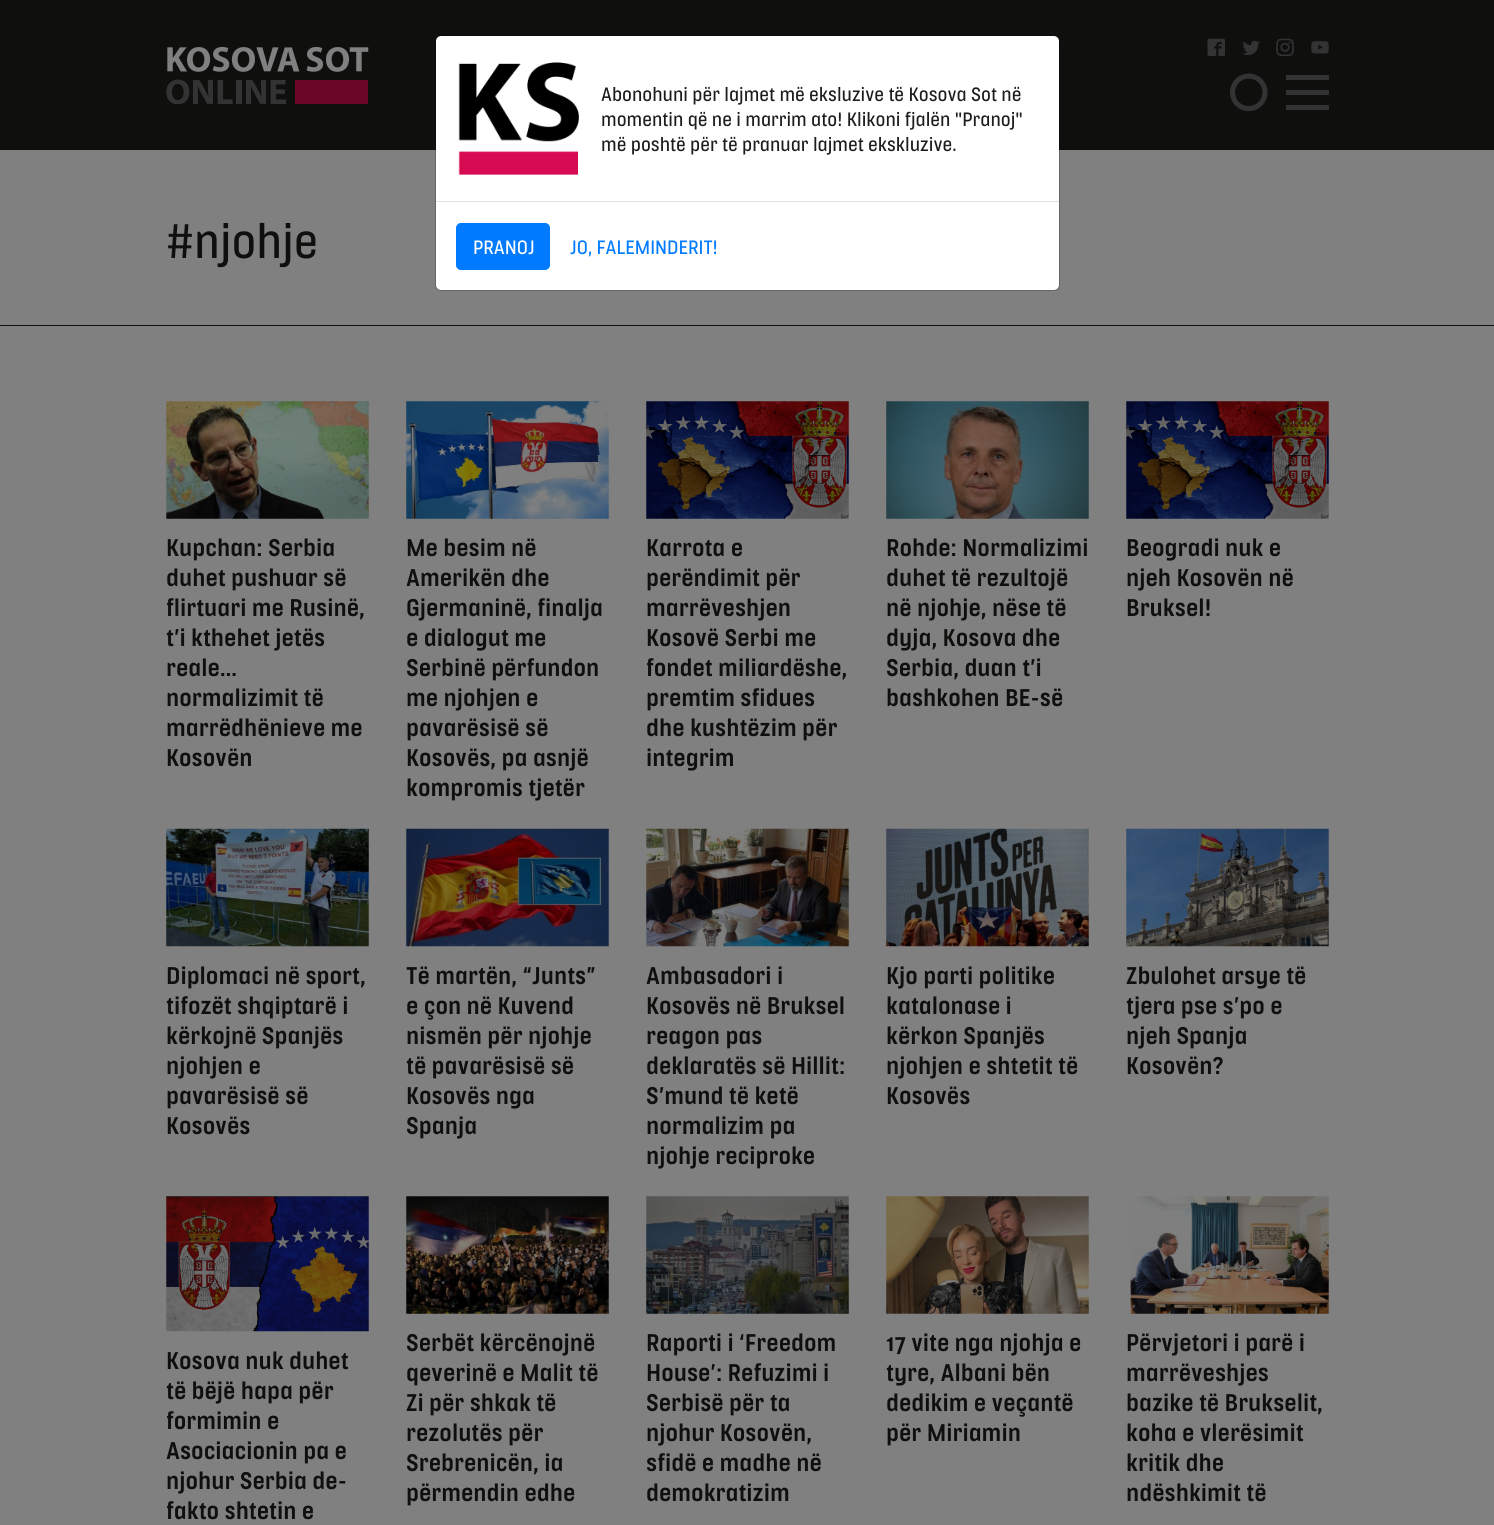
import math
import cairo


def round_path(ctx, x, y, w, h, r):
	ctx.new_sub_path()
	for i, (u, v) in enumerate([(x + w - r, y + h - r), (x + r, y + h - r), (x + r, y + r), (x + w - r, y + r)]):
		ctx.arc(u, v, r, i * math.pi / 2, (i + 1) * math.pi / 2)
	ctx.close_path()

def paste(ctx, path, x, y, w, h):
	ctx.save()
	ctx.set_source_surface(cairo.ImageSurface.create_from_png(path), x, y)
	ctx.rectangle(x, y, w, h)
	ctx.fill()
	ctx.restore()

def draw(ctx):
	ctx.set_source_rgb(0.502, 0.502, 0.502)
	ctx.paint()
	ctx.set_source_rgb(0.059, 0.059, 0.055)
	ctx.rectangle(0, 0, 1494, 150)
	ctx.fill()
	paste(ctx, 'media/1.png', 166, 46, 203, 58)
	paste(ctx, 'media/2.png', 1207, 38, 18, 19)
	paste(ctx, 'media/3.png', 1242, 40, 18, 15)
	paste(ctx, 'media/4.png', 1276, 38, 18, 19)
	paste(ctx, 'media/5.png', 1311, 41, 18, 13)
	paste(ctx, 'media/6.png', 1230, 73, 38, 39)
	ctx.set_source_rgb(0.2, 0.2, 0.2)
	ctx.rectangle(1286, 90, 43, 5)
	ctx.rectangle(1286, 75, 43, 5)
	ctx.rectangle(1286, 105, 43, 5)
	ctx.fill()
	ctx.set_source_rgb(1, 1, 1)
	round_path(ctx, 436, 36, 623, 254, 5)
	ctx.fill()
	round_path(ctx, 435.5, 35.5, 624, 255, 5.5)
	ctx.set_source_rgba(0, 0, 0, 0.2)
	ctx.set_line_width(1)
	ctx.stroke()
	paste(ctx, 'media/7.png', 458, 62, 121, 113)
	ctx.select_font_face('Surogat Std')
	ctx.set_font_size(20)
	ctx.set_source_rgb(0.114, 0.114, 0.106)
	for x, y, s in [
		(601, 101, 'Abonohuni për lajmet më eksluzive të Kosova Sot në'),
		(601, 126, 'momentin që ne i marrim ato! Klikoni fjalën "Pranoj"'),
		(601, 151, 'më poshtë për të pranuar lajmet ekskluzive.'),
	]:
		ctx.move_to(x, y)
		ctx.show_text(s)
	ctx.set_source_rgb(0.871, 0.886, 0.902)
	ctx.rectangle(436, 201, 623, 1)
	ctx.fill()
	ctx.set_source_rgb(0, 0.482, 1)
	round_path(ctx, 456.5, 223.5, 93, 46, 4.5)
	ctx.fill_preserve()
	ctx.stroke()
	ctx.set_source_rgb(1, 1, 1)
	ctx.move_to(473, 254)
	ctx.show_text('PRANOJ')
	ctx.set_source_rgb(0, 0.482, 1)
	ctx.move_to(570, 254)
	ctx.show_text('JO, FALEMINDERIT!')
	ctx.set_source_rgb(0.059, 0.059, 0.055)
	ctx.rectangle(0, 325, 1494, 1)
	ctx.fill()
	ctx.set_font_size(50)
	ctx.move_to(166, 258)
	ctx.show_text('#njohje')
	paste(ctx, 'media/8.png', 166, 401, 203, 118)
	ctx.select_font_face('Surogat Std Medium')
	ctx.set_font_size(25)
	for x, y, s in [
		(166, 556, 'Kupchan: Serbia'),
		(166, 586, 'duhet pushuar së'),
		(166, 616, 'flirtuari me Rusinë,'),
		(166, 646, 't’i kthehet jetës'),
		(166, 676, 'reale…'),
		(166, 706, 'normalizimit të'),
		(166, 736, 'marrëdhënieve me'),
		(166, 766, 'Kosovën'),
	]:
		ctx.move_to(x, y)
		ctx.show_text(s)
	paste(ctx, 'media/9.png', 406, 401, 203, 118)
	for x, y, s in [
		(406, 556, 'Me besim në'),
		(406, 586, 'Amerikën dhe'),
		(406, 616, 'Gjermaninë, finalja'),
		(406, 646, 'e dialogut me'),
		(406, 676, 'Serbinë përfundon'),
		(406, 706, 'me njohjen e'),
		(406, 736, 'pavarësisë së'),
		(406, 766, 'Kosovës, pa asnjë'),
		(406, 796, 'kompromis tjetër'),
	]:
		ctx.move_to(x, y)
		ctx.show_text(s)
	paste(ctx, 'media/10.png', 646, 401, 203, 118)
	for x, y, s in [
		(646, 556, 'Karrota e'),
		(646, 586, 'perëndimit për'),
		(646, 616, 'marrëveshjen'),
		(646, 646, 'Kosovë Serbi me'),
		(646, 676, 'fondet miliardëshe,'),
		(646, 706, 'premtim sfidues'),
		(646, 736, 'dhe kushtëzim për'),
		(646, 766, 'integrim'),
	]:
		ctx.move_to(x, y)
		ctx.show_text(s)
	paste(ctx, 'media/11.png', 886, 401, 203, 118)
	for x, y, s in [
		(886, 556, 'Rohde: Normalizimi'),
		(886, 586, 'duhet të rezultojë'),
		(886, 616, 'në njohje, nëse të'),
		(886, 646, 'dyja, Kosova dhe'),
		(886, 676, 'Serbia, duan t’i'),
		(886, 706, 'bashkohen BE-së'),
	]:
		ctx.move_to(x, y)
		ctx.show_text(s)
	paste(ctx, 'media/12.png', 1126, 401, 203, 118)
	for x, y, s in [
		(1126, 556, 'Beogradi nuk e'),
		(1126, 586, 'njeh Kosovën në'),
		(1126, 616, 'Bruksel!'),
	]:
		ctx.move_to(x, y)
		ctx.show_text(s)
	paste(ctx, 'media/13.png', 166, 828, 203, 119)
	for x, y, s in [
		(166, 984, 'Diplomaci në sport,'),
		(166, 1014, 'tifozët shqiptarë i'),
		(166, 1044, 'kërkojnë Spanjës'),
		(166, 1074, 'njohjen e'),
		(166, 1104, 'pavarësisë së'),
		(166, 1134, 'Kosovës'),
	]:
		ctx.move_to(x, y)
		ctx.show_text(s)
	paste(ctx, 'media/14.png', 406, 828, 203, 119)
	for x, y, s in [
		(406, 984, 'Të martën, “Junts”'),
		(406, 1014, 'e çon në Kuvend'),
		(406, 1044, 'nismën për njohje'),
		(406, 1074, 'të pavarësisë së'),
		(406, 1104, 'Kosovës nga'),
		(406, 1134, 'Spanja'),
	]:
		ctx.move_to(x, y)
		ctx.show_text(s)
	paste(ctx, 'media/15.png', 646, 828, 203, 119)
	for x, y, s in [
		(646, 984, 'Ambasadori i'),
		(646, 1014, 'Kosovës në Bruksel'),
		(646, 1044, 'reagon pas'),
		(646, 1074, 'deklaratës së Hillit:'),
		(646, 1104, 'S’mund të ketë'),
		(646, 1134, 'normalizim pa'),
		(646, 1164, 'njohje reciproke'),
	]:
		ctx.move_to(x, y)
		ctx.show_text(s)
	paste(ctx, 'media/16.png', 886, 828, 203, 119)
	for x, y, s in [
		(886, 984, 'Kjo parti politike'),
		(886, 1014, 'katalonase i'),
		(886, 1044, 'kërkon Spanjës'),
		(886, 1074, 'njohjen e shtetit të'),
		(886, 1104, 'Kosovës'),
	]:
		ctx.move_to(x, y)
		ctx.show_text(s)
	paste(ctx, 'media/17.png', 1126, 828, 203, 119)
	for x, y, s in [
		(1126, 984, 'Zbulohet arsye të'),
		(1126, 1014, 'tjera pse s’po e'),
		(1126, 1044, 'njeh Spanja'),
		(1126, 1074, 'Kosovën?'),
	]:
		ctx.move_to(x, y)
		ctx.show_text(s)
	paste(ctx, 'media/18.png', 166, 1196, 203, 136)
	for x, y, s in [
		(166, 1369, 'Kosova nuk duhet'),
		(166, 1399, 'të bëjë hapa për'),
		(166, 1429, 'formimin e'),
		(166, 1459, 'Asociacionin pa e'),
		(166, 1489, 'njohur Serbia de-'),
		(166, 1519, 'fakto shtetin e'),
	]:
		ctx.move_to(x, y)
		ctx.show_text(s)
	paste(ctx, 'media/19.png', 406, 1196, 203, 118)
	for x, y, s in [
		(406, 1351, 'Serbët kërcënojnë'),
		(406, 1381, 'qeverinë e Malit të'),
		(406, 1411, 'Zi për shkak të'),
		(406, 1441, 'rezolutës për'),
		(406, 1471, 'Srebrenicën, ia'),
		(406, 1501, 'përmendin edhe'),
	]:
		ctx.move_to(x, y)
		ctx.show_text(s)
	paste(ctx, 'media/20.png', 646, 1196, 203, 118)
	for x, y, s in [
		(646, 1351, 'Raporti i ‘Freedom'),
		(646, 1381, 'House’: Refuzimi i'),
		(646, 1411, 'Serbisë për ta'),
		(646, 1441, 'njohur Kosovën,'),
		(646, 1471, 'sfidë e madhe në'),
		(646, 1501, 'demokratizim'),
	]:
		ctx.move_to(x, y)
		ctx.show_text(s)
	paste(ctx, 'media/21.png', 886, 1196, 203, 118)
	for x, y, s in [
		(886, 1351, '17 vite nga njohja e'),
		(886, 1381, 'tyre, Albani bën'),
		(886, 1411, 'dedikim e veçantë'),
		(886, 1441, 'për Miriamin'),
	]:
		ctx.move_to(x, y)
		ctx.show_text(s)
	paste(ctx, 'media/22.png', 1130, 1196, 199, 118)
	for x, y, s in [
		(1126, 1351, 'Përvjetori i parë i'),
		(1126, 1381, 'marrëveshjes'),
		(1126, 1411, 'bazike të Brukselit,'),
		(1126, 1441, 'koha e vlerësimit'),
		(1126, 1471, 'kritik dhe'),
		(1126, 1501, 'ndëshkimit të'),
	]:
		ctx.move_to(x, y)
		ctx.show_text(s)


surface = cairo.ImageSurface(cairo.FORMAT_RGB24, 1494, 1525)
ctx = cairo.Context(surface)
options = cairo.FontOptions()
options.set_hint_metrics(cairo.HINT_METRICS_OFF)
options.set_hint_style(cairo.HINT_STYLE_NONE)
ctx.set_font_options(options)
ctx.set_miter_limit(4)
draw(ctx)
surface.write_to_png('image.png')
